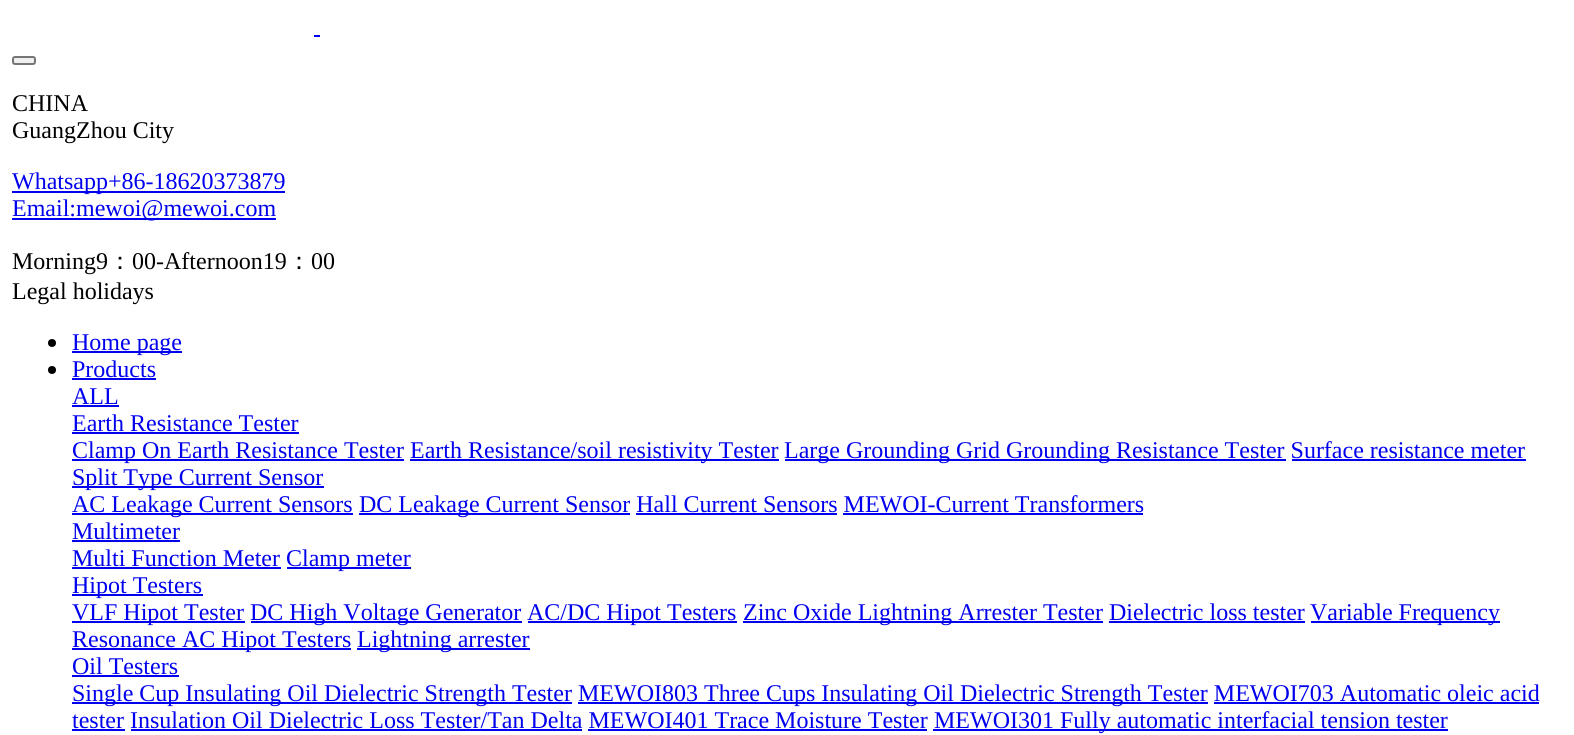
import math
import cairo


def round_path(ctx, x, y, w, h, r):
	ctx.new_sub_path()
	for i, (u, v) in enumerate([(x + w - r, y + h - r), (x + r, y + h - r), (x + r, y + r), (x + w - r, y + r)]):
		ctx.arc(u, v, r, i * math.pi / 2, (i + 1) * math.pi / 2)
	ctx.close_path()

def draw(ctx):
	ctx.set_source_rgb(1, 1, 1)
	ctx.paint()
	ctx.set_source_rgb(0, 0, 0.933)
	ctx.rectangle(314, 35, 6, 2)
	ctx.fill()
	ctx.set_source_rgb(0.937, 0.937, 0.937)
	round_path(ctx, 13, 57, 22, 7, 2)
	ctx.fill_preserve()
	ctx.set_source_rgb(0.463, 0.463, 0.463)
	ctx.stroke()
	ctx.select_font_face('Liberation Serif')
	ctx.set_font_size(24)
	ctx.set_source_rgb(0, 0, 0)
	ctx.move_to(12, 111)
	ctx.show_text('CHINA')
	ctx.move_to(12, 138)
	ctx.show_text('GuangZhou City')
	ctx.set_source_rgb(0, 0, 0.933)
	ctx.rectangle(12, 191, 273, 2)
	ctx.fill()
	ctx.move_to(12, 189)
	ctx.show_text('Whatsapp+86-18620373879')
	ctx.rectangle(12, 218, 264, 2)
	ctx.fill()
	ctx.move_to(12, 216)
	ctx.show_text('Email:mewoi@mewoi.com')
	ctx.set_source_rgb(0, 0, 0)
	ctx.move_to(12, 269)
	ctx.show_text('Morning9')
	ctx.select_font_face('WenQuanYi Zen Hei Medium')
	ctx.move_to(108, 269)
	ctx.show_text('：')
	ctx.select_font_face('Liberation Serif')
	ctx.move_to(132, 269)
	ctx.show_text('00-Afternoon19')
	ctx.select_font_face('WenQuanYi Zen Hei Medium')
	ctx.move_to(287, 269)
	ctx.show_text('：')
	ctx.select_font_face('Liberation Serif')
	ctx.move_to(311, 269)
	ctx.show_text('00')
	ctx.move_to(12, 299)
	ctx.show_text('Legal holidays')
	ctx.new_path()
	ctx.arc(52, 343, 4, 0, 2 * math.pi)
	ctx.fill()
	ctx.set_source_rgb(0, 0, 0.933)
	ctx.rectangle(72, 351, 110, 2)
	ctx.fill()
	ctx.move_to(72, 350)
	ctx.show_text('Home page')
	ctx.set_source_rgb(0, 0, 0)
	ctx.new_path()
	ctx.arc(52, 370, 4, 0, 2 * math.pi)
	ctx.fill()
	ctx.set_source_rgb(0, 0, 0.933)
	ctx.move_to(72, 377)
	ctx.show_text('Products')
	ctx.rectangle(72, 378, 84, 2)
	ctx.fill()
	ctx.move_to(72, 404)
	ctx.show_text('ALL')
	ctx.rectangle(72, 405, 47, 2)
	ctx.fill()
	ctx.move_to(72, 431)
	ctx.show_text('Earth Resistance Tester')
	ctx.rectangle(72, 432, 227, 2)
	ctx.fill()
	ctx.rectangle(72, 459, 332, 2)
	ctx.fill()
	ctx.move_to(72, 458)
	ctx.show_text('Clamp On Earth Resistance Tester')
	ctx.rectangle(410, 459, 369, 2)
	ctx.fill()
	ctx.move_to(410, 458)
	ctx.show_text('Earth Resistance/soil resistivity Tester')
	ctx.rectangle(785, 459, 501, 2)
	ctx.fill()
	ctx.move_to(784, 458)
	ctx.show_text('Large Grounding Grid Grounding Resistance Tester Surface resistance meter')
	ctx.rectangle(1292, 459, 234, 2)
	ctx.fill()
	ctx.rectangle(72, 486, 252, 2)
	ctx.fill()
	ctx.move_to(72, 485)
	ctx.show_text('Split Type Current Sensor')
	ctx.rectangle(72, 513, 281, 2)
	ctx.fill()
	ctx.move_to(72, 512)
	ctx.show_text('AC Leakage Current Sensors')
	ctx.rectangle(359, 513, 271, 2)
	ctx.fill()
	ctx.move_to(359, 512)
	ctx.show_text('DC Leakage Current Sensor Hall Current Sensors MEWOI-Current Transformers')
	ctx.rectangle(636, 513, 201, 2)
	ctx.fill()
	ctx.rectangle(843, 513, 300, 2)
	ctx.fill()
	ctx.move_to(72, 539)
	ctx.show_text('Multimeter')
	ctx.rectangle(72, 540, 108, 2)
	ctx.fill()
	ctx.move_to(72, 566)
	ctx.show_text('Multi Function Meter')
	ctx.rectangle(72, 567, 209, 2)
	ctx.fill()
	ctx.rectangle(287, 567, 124, 2)
	ctx.fill()
	ctx.move_to(286, 566)
	ctx.show_text('Clamp meter')
	ctx.rectangle(72, 594, 131, 2)
	ctx.fill()
	ctx.move_to(72, 593)
	ctx.show_text('Hipot Testers')
	ctx.rectangle(72, 621, 173, 2)
	ctx.fill()
	ctx.move_to(72, 620)
	ctx.show_text('VLF Hipot Tester')
	ctx.rectangle(251, 621, 271, 2)
	ctx.fill()
	ctx.move_to(250, 620)
	ctx.show_text('DC High Voltage Generator')
	ctx.rectangle(528, 621, 209, 2)
	ctx.fill()
	ctx.move_to(527, 620)
	ctx.show_text('AC/DC Hipot Testers')
	ctx.rectangle(743, 621, 360, 2)
	ctx.fill()
	ctx.move_to(743, 620)
	ctx.show_text('Zinc Oxide Lightning Arrester Tester Dielectric loss tester')
	ctx.rectangle(1311, 621, 189, 2)
	ctx.fill()
	ctx.move_to(1310, 620)
	ctx.show_text('Variable Frequency')
	ctx.rectangle(1109, 621, 196, 2)
	ctx.fill()
	ctx.rectangle(72, 648, 279, 2)
	ctx.fill()
	ctx.move_to(72, 647)
	ctx.show_text('Resonance AC Hipot Testers')
	ctx.rectangle(357, 648, 173, 2)
	ctx.fill()
	ctx.move_to(357, 647)
	ctx.show_text('Lightning arrester')
	ctx.move_to(72, 674)
	ctx.show_text('Oil Testers')
	ctx.rectangle(72, 675, 107, 2)
	ctx.fill()
	ctx.rectangle(72, 702, 500, 2)
	ctx.fill()
	ctx.move_to(72, 701)
	ctx.show_text('Single Cup Insulating Oil Dielectric Strength Tester')
	ctx.rectangle(578, 702, 630, 2)
	ctx.fill()
	ctx.move_to(578, 701)
	ctx.show_text('MEWOI803 Three Cups Insulating Oil Dielectric Strength Tester MEWOI703 Automatic oleic acid')
	ctx.move_to(72, 728)
	ctx.show_text('tester Insulation Oil Dielectric Loss Tester/Tan Delta MEWOI401 Trace Moisture Tester')
	ctx.rectangle(1214, 702, 325, 2)
	ctx.rectangle(72, 729, 53, 2)
	ctx.rectangle(933, 729, 515, 2)
	ctx.fill()
	ctx.move_to(934, 728)
	ctx.show_text('MEWOI301 Fully automatic interfacial tension tester')
	ctx.rectangle(131, 729, 451, 2)
	ctx.fill()
	ctx.rectangle(588, 729, 339, 2)
	ctx.fill()


surface = cairo.ImageSurface(cairo.FORMAT_RGB24, 1574, 735)
ctx = cairo.Context(surface)
options = cairo.FontOptions()
options.set_hint_metrics(cairo.HINT_METRICS_OFF)
options.set_hint_style(cairo.HINT_STYLE_NONE)
ctx.set_font_options(options)
ctx.set_miter_limit(4)
draw(ctx)
surface.write_to_png('image.png')
